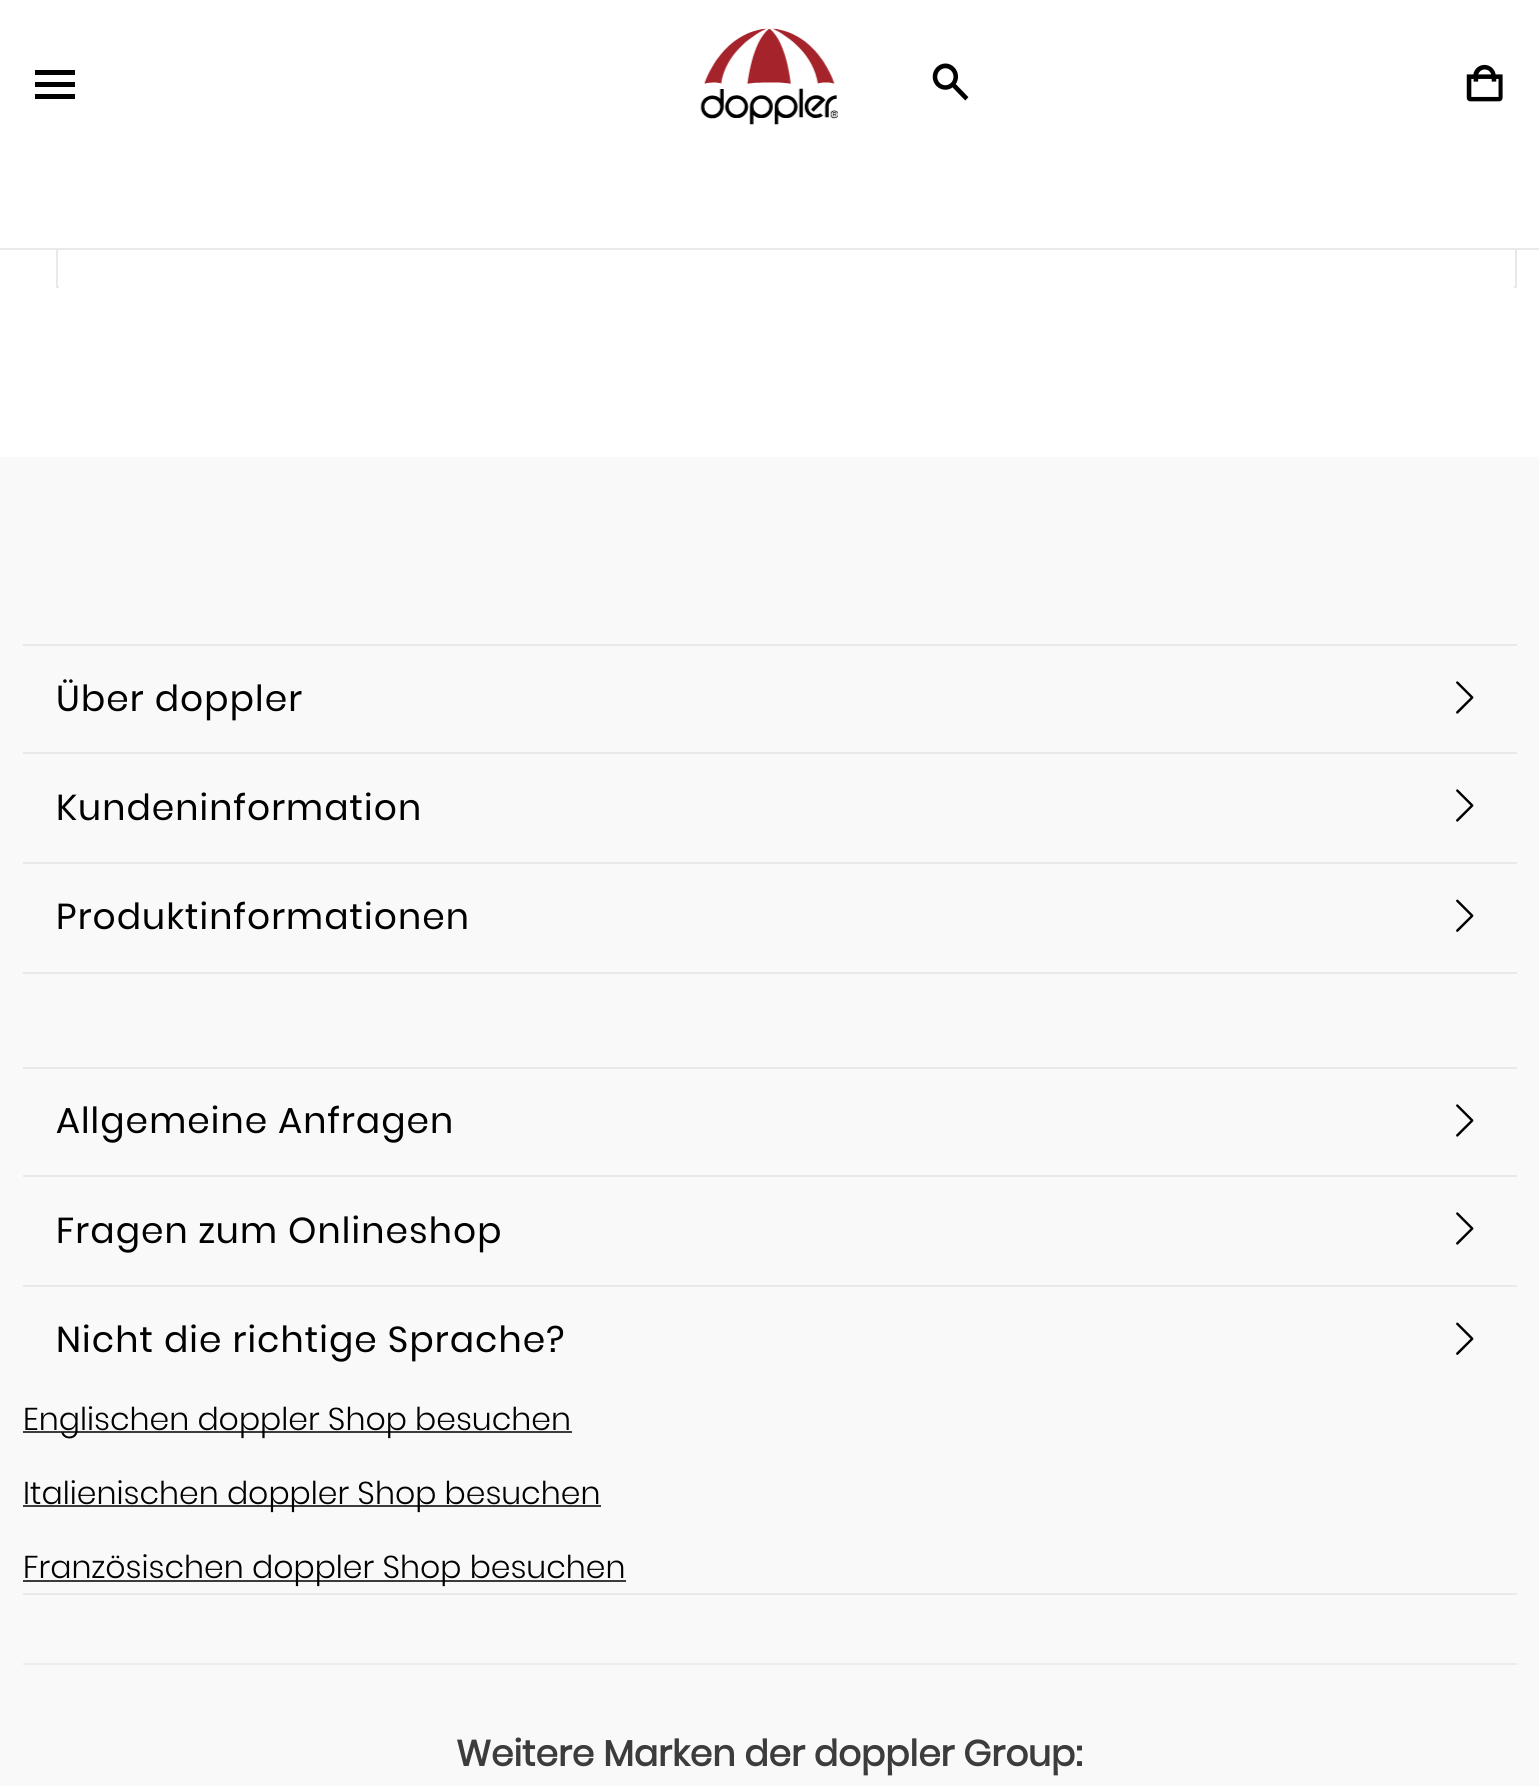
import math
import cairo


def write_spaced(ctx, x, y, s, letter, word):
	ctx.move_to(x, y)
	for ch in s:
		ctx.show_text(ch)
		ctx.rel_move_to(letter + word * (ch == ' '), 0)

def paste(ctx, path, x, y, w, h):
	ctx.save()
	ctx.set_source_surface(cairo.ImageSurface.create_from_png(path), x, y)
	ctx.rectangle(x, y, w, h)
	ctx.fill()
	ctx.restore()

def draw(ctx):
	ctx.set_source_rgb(1, 1, 1)
	ctx.paint()
	ctx.rectangle(57, -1, 1459, 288)
	ctx.set_source_rgb(0.914, 0.914, 0.914)
	ctx.stroke()
	ctx.set_source_rgb(1, 1, 1)
	ctx.rectangle(59, 286, 1455, 2)
	ctx.rectangle(56, 0, 1461, 248)
	ctx.fill()
	ctx.set_source_rgb(0, 0, 0)
	ctx.rectangle(35, 94, 40, 5)
	ctx.rectangle(35, 82, 40, 5)
	ctx.rectangle(35, 70, 40, 5)
	ctx.fill()
	paste(ctx, 'media/1.png', 700, 28, 138, 97)
	paste(ctx, 'media/2.png', 932, 63, 37, 38)
	paste(ctx, 'media/3.png', 1466, 64, 37, 38)
	ctx.set_source_rgb(0.914, 0.914, 0.914)
	ctx.rectangle(0, 248, 1539, 2)
	ctx.fill()
	ctx.set_source_rgb(0.976, 0.976, 0.976)
	ctx.rectangle(0, 457, 1539, 1329)
	ctx.fill()
	ctx.set_source_rgb(0.914, 0.914, 0.914)
	ctx.rectangle(23, 644, 1494, 2)
	ctx.fill()
	ctx.select_font_face('Poppins')
	ctx.set_font_size(36)
	ctx.set_source_rgb(0, 0, 0)
	write_spaced(ctx, 56, 711, 'Über doppler', 1.1, 0)
	paste(ctx, 'media/4.png', 1456, 681, 18, 33)
	ctx.set_source_rgb(0.914, 0.914, 0.914)
	ctx.rectangle(23, 752, 1494, 2)
	ctx.fill()
	ctx.set_source_rgb(0, 0, 0)
	write_spaced(ctx, 56, 820, 'Kundeninformation', 1.1, 0)
	paste(ctx, 'media/4.png', 1456, 789, 18, 33)
	ctx.set_source_rgb(0.914, 0.914, 0.914)
	ctx.rectangle(23, 862, 1494, 2)
	ctx.fill()
	ctx.rectangle(23, 972, 1494, 2)
	ctx.fill()
	ctx.set_source_rgb(0, 0, 0)
	write_spaced(ctx, 56, 929, 'Produktinformationen', 1.1, 0)
	paste(ctx, 'media/5.png', 1456, 899, 18, 33)
	ctx.set_source_rgb(0.914, 0.914, 0.914)
	ctx.rectangle(23, 1067, 1494, 2)
	ctx.fill()
	ctx.set_source_rgb(0, 0, 0)
	write_spaced(ctx, 56, 1133, 'Allgemeine Anfragen', 1.1, 0)
	paste(ctx, 'media/4.png', 1456, 1104, 18, 33)
	ctx.set_source_rgb(0.914, 0.914, 0.914)
	ctx.rectangle(23, 1175, 1494, 2)
	ctx.fill()
	ctx.set_source_rgb(0, 0, 0)
	write_spaced(ctx, 56, 1243, 'Fragen zum Onlineshop', 1.1, 0)
	paste(ctx, 'media/4.png', 1456, 1212, 18, 33)
	ctx.set_source_rgb(0.914, 0.914, 0.914)
	ctx.rectangle(23, 1285, 1494, 2)
	ctx.fill()
	ctx.rectangle(23, 1593, 1494, 2)
	ctx.fill()
	ctx.set_source_rgb(0, 0, 0)
	write_spaced(ctx, 56, 1352, 'Nicht die richtige Sprache?', 1.1, 0)
	paste(ctx, 'media/5.png', 1456, 1322, 18, 33)
	ctx.set_source_rgb(0.235, 0.235, 0.235)
	ctx.rectangle(23, 1431, 549, 2)
	ctx.fill()
	ctx.select_font_face('Poppins Light')
	ctx.set_font_size(31.5)
	ctx.set_source_rgb(0, 0, 0)
	ctx.move_to(23, 1430)
	ctx.show_text('Englischen doppler Shop besuchen')
	ctx.set_source_rgb(0.235, 0.235, 0.235)
	ctx.rectangle(23, 1505, 578, 2)
	ctx.fill()
	ctx.set_source_rgb(0, 0, 0)
	ctx.move_to(23, 1504)
	ctx.show_text('Italienischen doppler Shop besuchen')
	ctx.set_source_rgb(0.235, 0.235, 0.235)
	ctx.rectangle(23, 1580, 603, 2)
	ctx.fill()
	ctx.set_source_rgb(0, 0, 0)
	ctx.move_to(23, 1578)
	ctx.show_text('Französischen doppler Shop besuchen')
	ctx.set_source_rgb(0.922, 0.922, 0.922)
	ctx.rectangle(23, 1663, 1494, 2)
	ctx.fill()
	ctx.select_font_face('Poppins', cairo.FONT_SLANT_NORMAL, cairo.FONT_WEIGHT_BOLD)
	ctx.set_font_size(36)
	ctx.set_source_rgb(0.235, 0.235, 0.235)
	ctx.move_to(456, 1766)
	ctx.show_text('Weitere Marken der doppler Group:')


surface = cairo.ImageSurface(cairo.FORMAT_RGB24, 1539, 1786)
ctx = cairo.Context(surface)
options = cairo.FontOptions()
options.set_hint_metrics(cairo.HINT_METRICS_OFF)
options.set_hint_style(cairo.HINT_STYLE_NONE)
ctx.set_font_options(options)
ctx.set_miter_limit(4)
draw(ctx)
surface.write_to_png('image.png')
